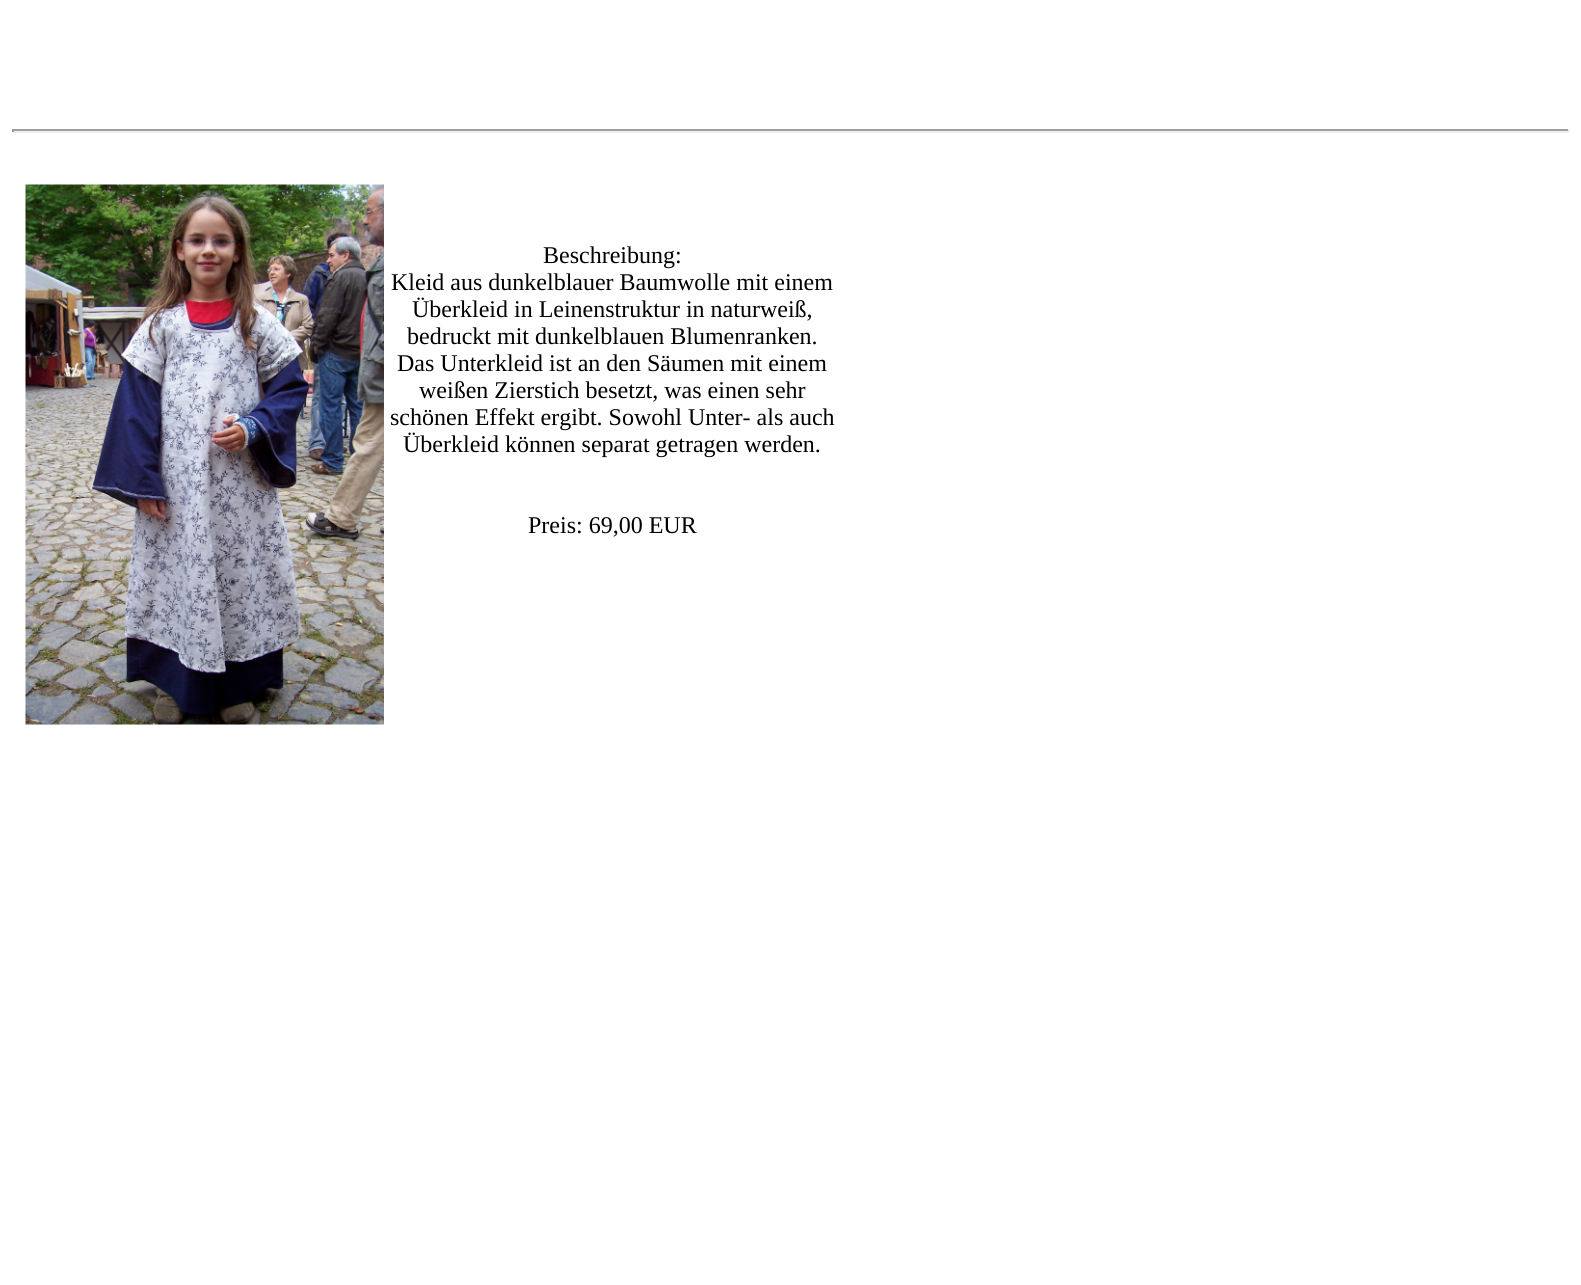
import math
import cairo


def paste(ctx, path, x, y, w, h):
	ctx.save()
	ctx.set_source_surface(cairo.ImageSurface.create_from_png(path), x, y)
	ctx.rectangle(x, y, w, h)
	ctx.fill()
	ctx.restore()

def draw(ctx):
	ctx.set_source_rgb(1, 1, 1)
	ctx.paint()
	ctx.set_source_rgb(0.624, 0.624, 0.624)
	ctx.rectangle(12, 129, 1557, 2)
	ctx.fill()
	ctx.set_source_rgb(0.933, 0.933, 0.933)
	ctx.rectangle(1568, 129, 2, 3)
	ctx.rectangle(12, 131, 1557, 2)
	ctx.fill()
	ctx.set_source_rgb(0.624, 0.624, 0.624)
	ctx.rectangle(12, 129, 2, 3)
	ctx.fill()
	paste(ctx, 'media/1.png', 25, 184, 359, 541)
	ctx.select_font_face('Liberation Serif')
	ctx.set_font_size(24)
	ctx.set_source_rgb(0, 0, 0)
	for x, y, s in [
		(543, 263, 'Beschreibung:'),
		(391, 290, 'Kleid aus dunkelblauer Baumwolle mit einem'),
		(412, 317, 'Überkleid in Leinenstruktur in naturweiß,'),
		(407, 344, 'bedruckt mit dunkelblauen Blumenranken.'),
		(397, 371, 'Das Unterkleid ist an den Säumen mit einem'),
		(419, 398, 'weißen Zierstich besetzt, was einen sehr'),
		(390, 425, 'schönen Effekt ergibt. Sowohl Unter- als auch'),
		(403, 452, 'Überkleid können separat getragen werden.'),
		(528, 533, 'Preis: 69,00 EUR'),
	]:
		ctx.move_to(x, y)
		ctx.show_text(s)


surface = cairo.ImageSurface(cairo.FORMAT_RGB24, 1581, 1285)
ctx = cairo.Context(surface)
options = cairo.FontOptions()
options.set_hint_metrics(cairo.HINT_METRICS_OFF)
options.set_hint_style(cairo.HINT_STYLE_NONE)
ctx.set_font_options(options)
ctx.set_miter_limit(4)
draw(ctx)
surface.write_to_png('image.png')
